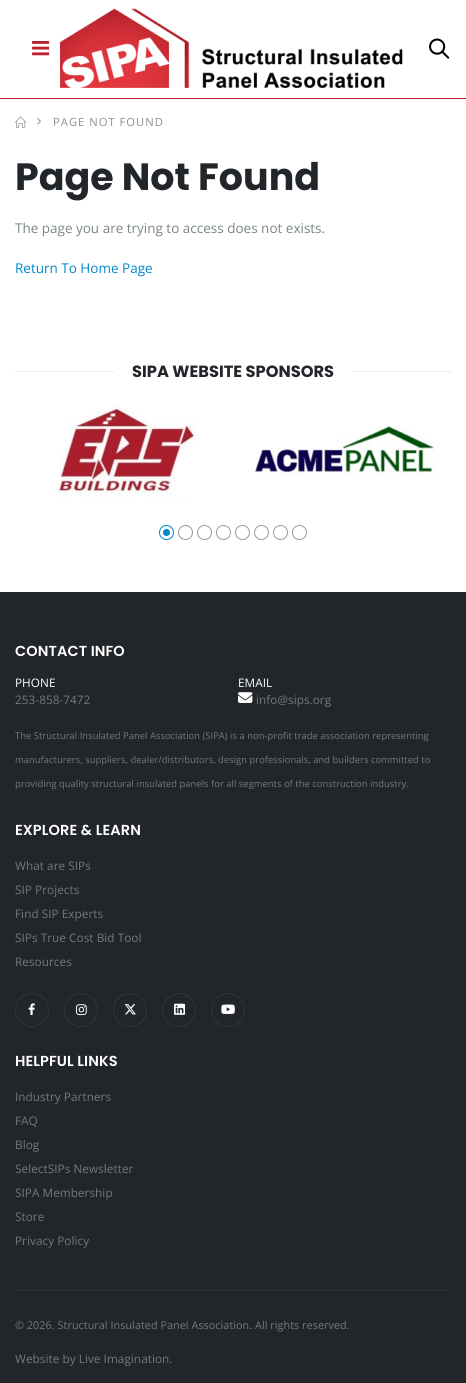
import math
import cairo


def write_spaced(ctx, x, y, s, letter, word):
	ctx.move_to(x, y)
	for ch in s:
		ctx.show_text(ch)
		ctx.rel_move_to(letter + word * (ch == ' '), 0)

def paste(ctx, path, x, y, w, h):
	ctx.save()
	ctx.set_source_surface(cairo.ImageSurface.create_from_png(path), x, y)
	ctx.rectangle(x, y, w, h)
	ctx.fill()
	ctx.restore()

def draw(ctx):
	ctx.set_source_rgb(1, 1, 1)
	ctx.paint()
	ctx.set_source_rgb(0.725, 0.129, 0.176)
	ctx.rectangle(0, 98, 466, 1)
	ctx.fill()
	paste(ctx, 'media/1.png', 32, 41, 18, 15)
	paste(ctx, 'media/2.png', 60, 8, 343, 80)
	paste(ctx, 'media/3.png', 429, 38, 21, 21)
	paste(ctx, 'media/4.png', 15, 116, 12, 12)
	paste(ctx, 'media/5.png', 37, 118, 4, 7)
	ctx.select_font_face('Open Sans')
	ctx.set_font_size(11.25)
	ctx.set_source_rgb(0.557, 0.557, 0.557)
	write_spaced(ctx, 53, 126, 'PAGE NOT FOUND', 1, 0)
	ctx.select_font_face('Poppins', cairo.FONT_SLANT_NORMAL, cairo.FONT_WEIGHT_BOLD)
	ctx.set_font_size(38)
	ctx.set_source_rgb(0.133, 0.145, 0.161)
	ctx.move_to(15, 190)
	ctx.show_text('Page Not Found')
	ctx.select_font_face('Open Sans')
	ctx.set_font_size(13.5)
	ctx.set_source_rgb(0.482, 0.522, 0.541)
	ctx.move_to(15, 233)
	ctx.show_text('The page you are trying to access does not exists.')
	ctx.set_source_rgb(0, 0.533, 0.8)
	ctx.move_to(15, 273)
	ctx.show_text('Return To Home Page')
	ctx.set_source_rgb(0.922, 0.922, 0.922)
	ctx.rectangle(15, 371, 99, 1)
	ctx.fill()
	ctx.select_font_face('Poppins', cairo.FONT_SLANT_NORMAL, cairo.FONT_WEIGHT_BOLD)
	ctx.set_font_size(16.25)
	ctx.set_source_rgb(0.133, 0.145, 0.161)
	ctx.move_to(132, 377)
	ctx.show_text('SIPA WEBSITE SPONSORS')
	ctx.set_source_rgb(0.922, 0.922, 0.922)
	ctx.rectangle(352, 371, 99, 1)
	ctx.fill()
	paste(ctx, 'media/6.png', 55, 405, 141, 95)
	paste(ctx, 'media/7.png', 255, 426, 180, 50)
	ctx.arc(166.5, 532.5, 7, 0, 2 * math.pi)
	ctx.set_source_rgb(0, 0.533, 0.8)
	ctx.set_line_width(1)
	ctx.stroke()
	ctx.arc(166.5, 532.5, 3.5, 0, 2 * math.pi)
	ctx.fill()
	ctx.arc(185.5, 532.5, 7, 0, 2 * math.pi)
	ctx.set_source_rgb(0.6, 0.6, 0.6)
	ctx.stroke()
	ctx.arc(204.5, 532.5, 7, 0, 2 * math.pi)
	ctx.stroke()
	ctx.arc(223.5, 532.5, 7, 0, 2 * math.pi)
	ctx.stroke()
	ctx.arc(242.5, 532.5, 7, 0, 2 * math.pi)
	ctx.stroke()
	ctx.arc(261.5, 532.5, 7, 0, 2 * math.pi)
	ctx.stroke()
	ctx.arc(280.5, 532.5, 7, 0, 2 * math.pi)
	ctx.stroke()
	ctx.arc(299.5, 532.5, 7, 0, 2 * math.pi)
	ctx.stroke()
	ctx.set_source_rgb(0.133, 0.145, 0.161)
	ctx.rectangle(0, 592, 466, 791)
	ctx.fill()
	ctx.select_font_face('Poppins SemiBold')
	ctx.set_font_size(14.5)
	ctx.set_source_rgb(1, 1, 1)
	write_spaced(ctx, 15, 656, 'CONTACT INFO', 0.1, 0)
	ctx.select_font_face('Open Sans')
	ctx.set_font_size(11.75)
	write_spaced(ctx, 15, 687, 'PHONE', 0.05, 0)
	ctx.set_source_rgb(0.467, 0.467, 0.467)
	write_spaced(ctx, 15, 704, '253-858-7472', 0.05, 0)
	ctx.set_source_rgb(1, 1, 1)
	write_spaced(ctx, 238, 687, 'EMAIL', 0.05, 0)
	paste(ctx, 'media/8.png', 238, 692, 15, 11)
	ctx.set_source_rgb(0.467, 0.467, 0.467)
	write_spaced(ctx, 256, 704, 'info@sips.org', 0.05, 0)
	ctx.set_font_size(9.35)
	for x, y, s in [
		(15, 739, 'The Structural Insulated Panel Association (SIPA) is a non-profit trade association representing'),
		(15, 763, 'manufacturers, suppliers, dealer/distributors, design professionals, and builders committed to'),
		(15, 787, 'providing quality structural insulated panels for all segments of the construction industry.'),
	]:
		write_spaced(ctx, x, y, s, 0.05, 0)
	ctx.select_font_face('Poppins SemiBold')
	ctx.set_font_size(14.5)
	ctx.set_source_rgb(1, 1, 1)
	write_spaced(ctx, 15, 835, 'EXPLORE & LEARN', 0.1, 0)
	ctx.select_font_face('Open Sans')
	ctx.set_font_size(11.75)
	ctx.set_source_rgb(0.467, 0.467, 0.467)
	for x, y, s in [
		(15, 870, 'What are SIPs'),
		(15, 894, 'SIP Projects'),
		(15, 918, 'Find SIP Experts'),
		(15, 942, 'SIPs True Cost Bid Tool'),
		(15, 966, 'Resources'),
	]:
		write_spaced(ctx, x, y, s, 0.05, 0)
	ctx.new_path()
	ctx.arc(32, 1010, 16.5, 0, 2 * math.pi)
	ctx.set_source_rgb(0.192, 0.204, 0.22)
	ctx.stroke()
	paste(ctx, 'media/9.png', 28, 1003, 7, 13)
	ctx.arc(81, 1010, 16.5, 0, 2 * math.pi)
	ctx.stroke()
	paste(ctx, 'media/10.png', 76, 1004, 11, 12)
	ctx.arc(130, 1010, 16.5, 0, 2 * math.pi)
	ctx.stroke()
	paste(ctx, 'media/11.png', 124, 1004, 12, 11)
	ctx.arc(179, 1010, 16.5, 0, 2 * math.pi)
	ctx.stroke()
	paste(ctx, 'media/12.png', 174, 1003, 12, 12)
	ctx.arc(228, 1010, 16.5, 0, 2 * math.pi)
	ctx.stroke()
	paste(ctx, 'media/13.png', 221, 1004, 14, 10)
	ctx.select_font_face('Poppins SemiBold')
	ctx.set_font_size(14.5)
	ctx.set_source_rgb(1, 1, 1)
	write_spaced(ctx, 15, 1066, 'HELPFUL LINKS', 0.1, 0)
	ctx.select_font_face('Open Sans')
	ctx.set_font_size(11.75)
	ctx.set_source_rgb(0.467, 0.467, 0.467)
	for x, y, s in [
		(15, 1101, 'Industry Partners'),
		(15, 1125, 'FAQ'),
		(15, 1149, 'Blog'),
		(15, 1173, 'SelectSIPs Newsletter'),
		(15, 1197, 'SIPA Membership'),
		(15, 1221, 'Store'),
		(15, 1245, 'Privacy Policy'),
	]:
		write_spaced(ctx, x, y, s, 0.05, 0)
	ctx.set_source_rgb(0.192, 0.204, 0.22)
	ctx.rectangle(15, 1290, 436, 1)
	ctx.fill()
	ctx.set_font_size(10.8)
	ctx.set_source_rgb(0.467, 0.467, 0.467)
	write_spaced(ctx, 15, 1329, '© 2026. Structural Insulated Panel Association. All rights reserved.', 0.05, 0)
	ctx.set_font_size(11.75)
	write_spaced(ctx, 15, 1363, 'Website by Live Imagination.', 0.05, 0)


surface = cairo.ImageSurface(cairo.FORMAT_RGB24, 466, 1383)
ctx = cairo.Context(surface)
options = cairo.FontOptions()
options.set_hint_metrics(cairo.HINT_METRICS_OFF)
options.set_hint_style(cairo.HINT_STYLE_NONE)
ctx.set_font_options(options)
ctx.set_miter_limit(4)
draw(ctx)
surface.write_to_png('image.png')
